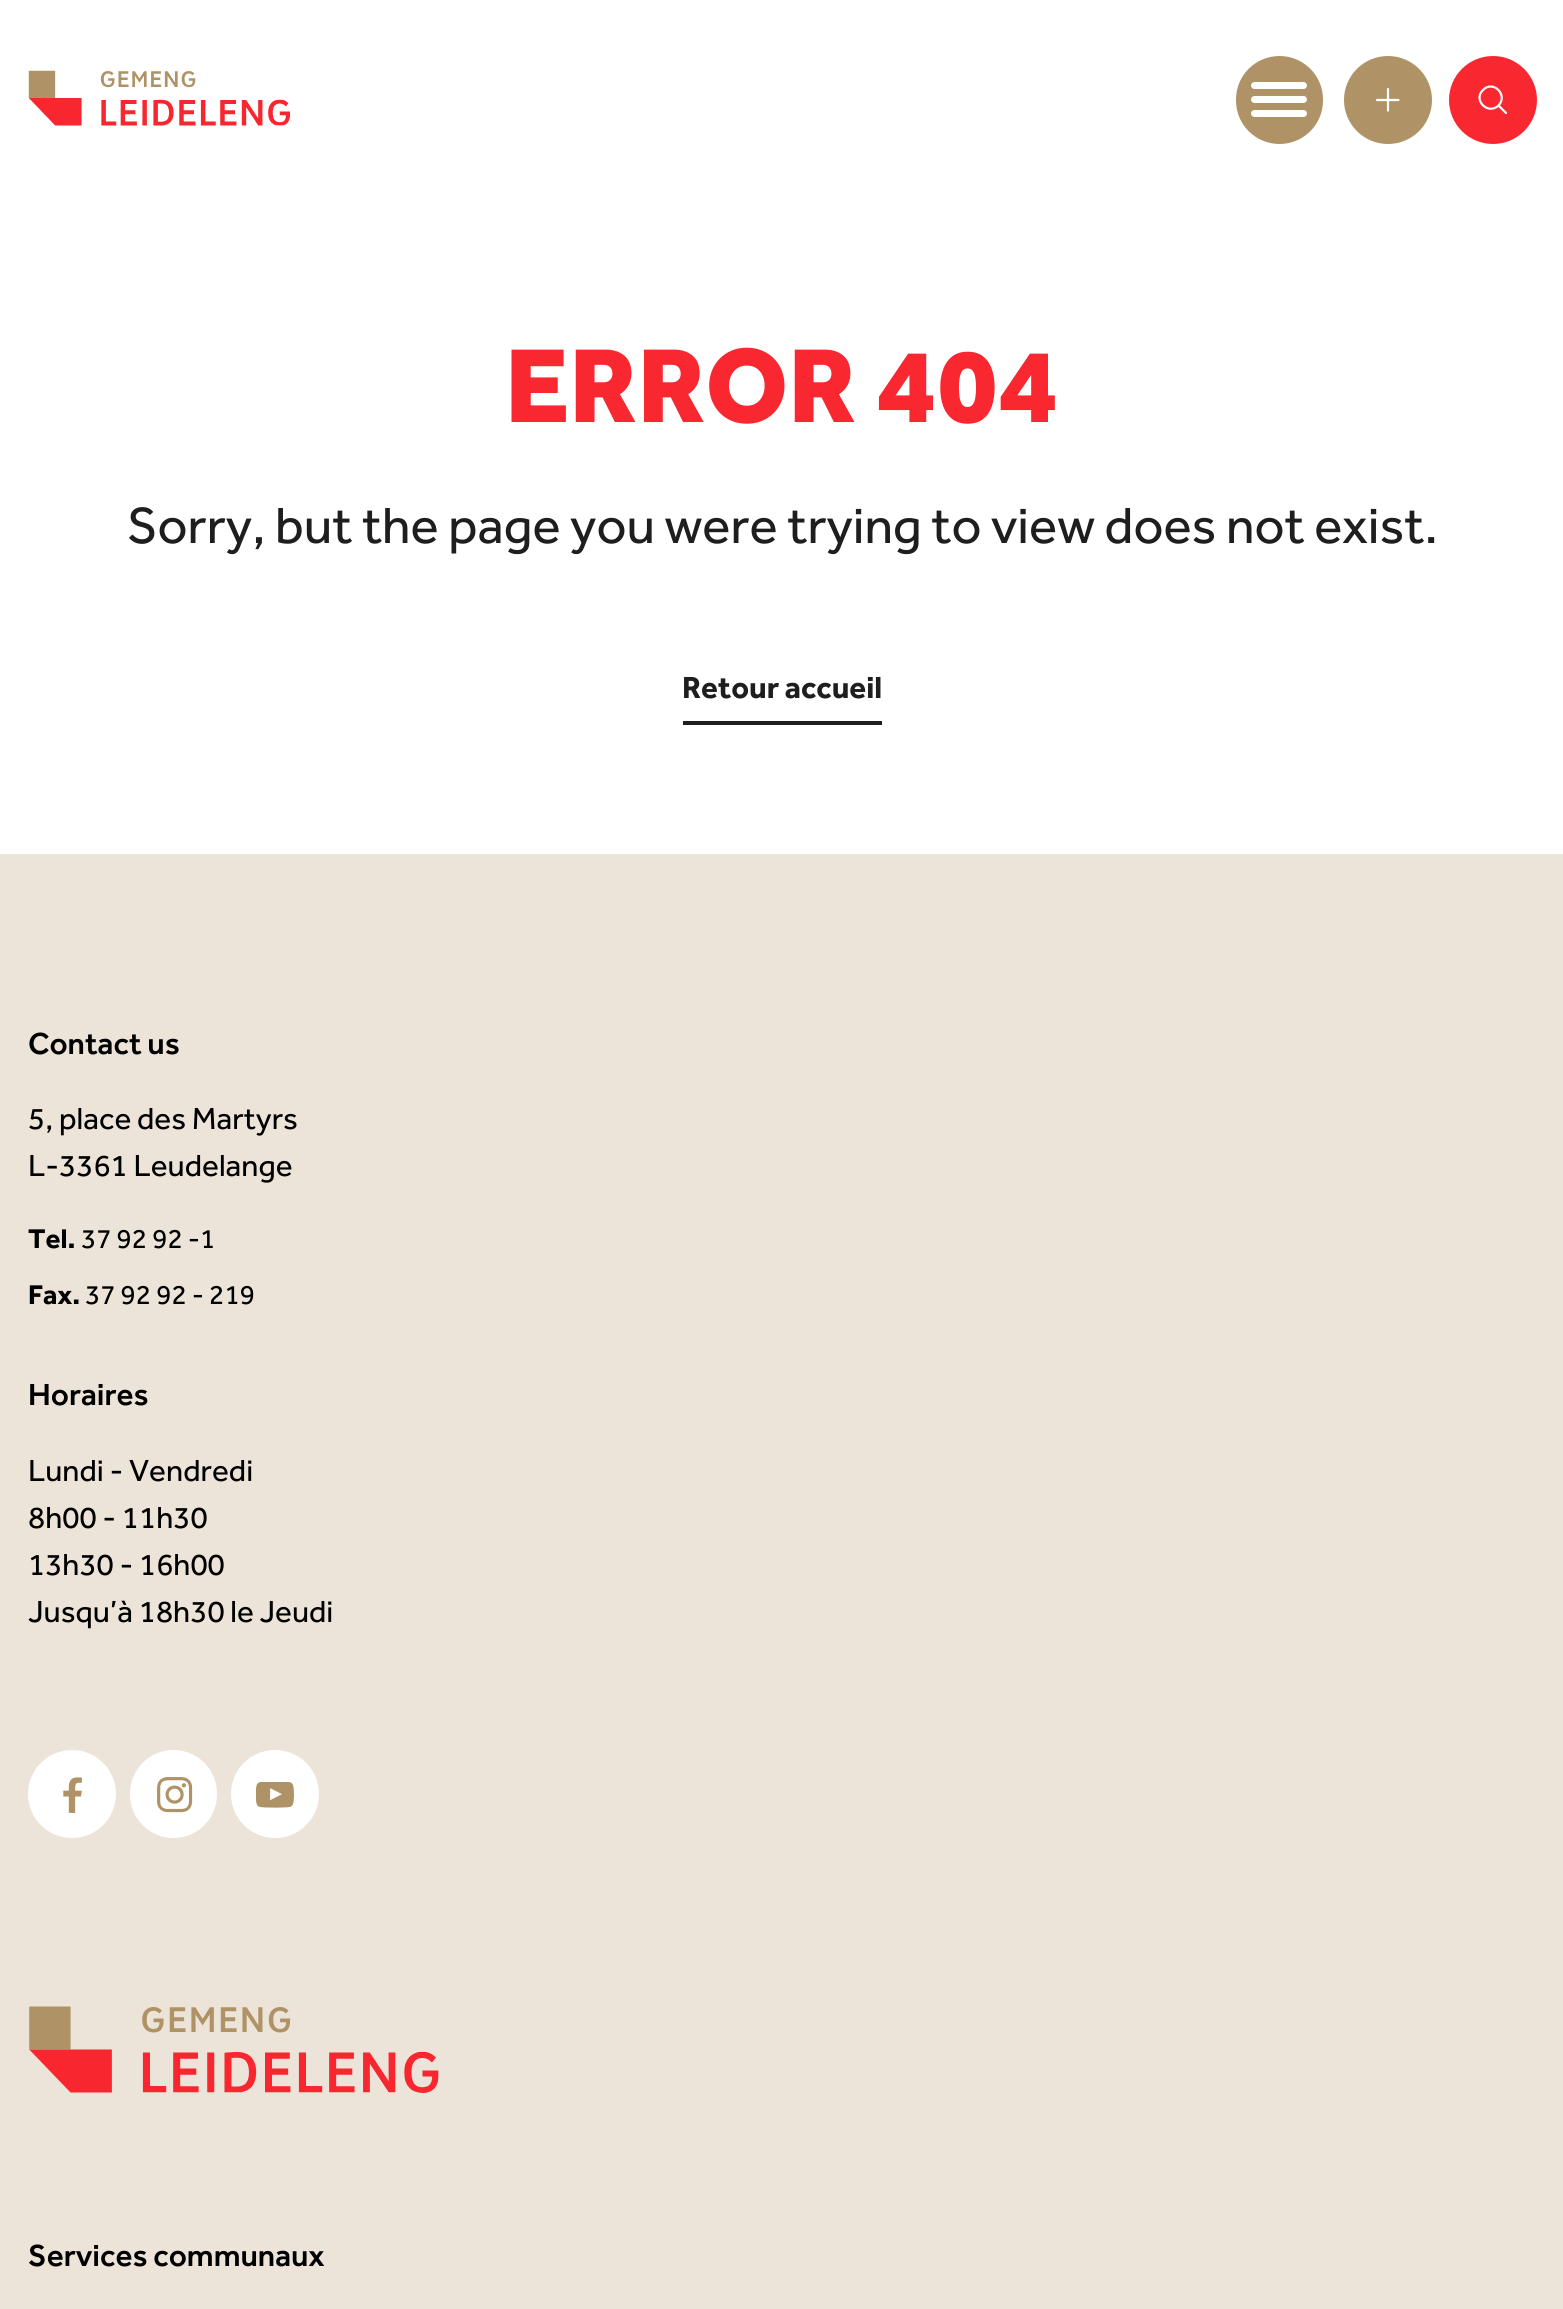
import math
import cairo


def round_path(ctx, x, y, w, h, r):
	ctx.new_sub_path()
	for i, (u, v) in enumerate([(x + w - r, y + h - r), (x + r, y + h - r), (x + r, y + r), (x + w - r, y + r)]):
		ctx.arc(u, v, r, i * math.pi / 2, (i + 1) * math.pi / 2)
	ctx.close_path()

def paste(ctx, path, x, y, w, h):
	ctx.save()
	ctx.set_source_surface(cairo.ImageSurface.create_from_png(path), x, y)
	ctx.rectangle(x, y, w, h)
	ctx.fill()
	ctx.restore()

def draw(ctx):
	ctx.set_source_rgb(1, 1, 1)
	ctx.paint()
	paste(ctx, 'media/1.png', 28, 70, 262, 56)
	ctx.set_source_rgb(0.686, 0.573, 0.396)
	round_path(ctx, 1236, 56, 87, 88, 43.5)
	ctx.fill()
	ctx.set_source_rgb(1, 1, 1)
	round_path(ctx, 1251, 82, 56, 7, 3.5)
	ctx.fill()
	round_path(ctx, 1251, 96, 56, 7, 3.5)
	ctx.fill()
	round_path(ctx, 1251, 110, 56, 7, 3.5)
	ctx.fill()
	ctx.set_source_rgb(0.686, 0.573, 0.396)
	ctx.arc(1388, 100, 44, 0, 2 * math.pi)
	ctx.fill()
	ctx.new_path()
	ctx.move_to(1388, 89)
	ctx.line_to(1388, 110.5)
	ctx.move_to(1398.5, 100)
	ctx.line_to(1377, 100)
	ctx.set_source_rgb(1, 1, 1)
	ctx.set_line_width(2.2)
	ctx.set_line_cap(cairo.LINE_CAP_ROUND)
	ctx.set_line_join(cairo.LINE_JOIN_ROUND)
	ctx.stroke()
	ctx.set_source_rgb(0.973, 0.153, 0.184)
	ctx.arc(1493, 100, 44, 0, 2 * math.pi)
	ctx.fill()
	ctx.new_path()
	ctx.move_to(1506, 113)
	ctx.line_to(1498.5, 105.5)
	ctx.move_to(1498.5, 105.5)
	ctx.curve_to(1508.5, 95, 1493, 79.5, 1483, 90)
	ctx.curve_to(1472.5, 100, 1488, 115.5, 1498.5, 105.5)
	ctx.close_path()
	ctx.set_source_rgb(1, 1, 1)
	ctx.stroke()
	ctx.select_font_face('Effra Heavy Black')
	ctx.set_font_size(108.5)
	ctx.set_source_rgb(0.973, 0.153, 0.184)
	ctx.move_to(505, 422)
	ctx.show_text('ERROR 404')
	ctx.select_font_face('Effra')
	ctx.set_font_size(52.5)
	ctx.set_source_rgb(0.118, 0.118, 0.118)
	ctx.move_to(127, 543)
	ctx.show_text('Sorry, but the page you were trying to view does not exist.')
	ctx.select_font_face('Effra', cairo.FONT_SLANT_NORMAL, cairo.FONT_WEIGHT_BOLD)
	ctx.set_font_size(31.5)
	ctx.move_to(682, 698)
	ctx.show_text('Retour accueil')
	ctx.rectangle(683, 721, 199, 4)
	ctx.fill()
	ctx.set_source_rgb(0.925, 0.894, 0.851)
	ctx.rectangle(0, 854, 1563, 1455)
	ctx.fill()
	ctx.select_font_face('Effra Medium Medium')
	ctx.set_source_rgb(0, 0, 0)
	ctx.move_to(28, 1054)
	ctx.show_text('Contact us')
	ctx.select_font_face('Effra')
	ctx.move_to(28, 1129)
	ctx.show_text('5, place des Martyrs')
	ctx.move_to(28, 1176)
	ctx.show_text('L-3361 Leudelange')
	ctx.select_font_face('Effra', cairo.FONT_SLANT_NORMAL, cairo.FONT_WEIGHT_BOLD)
	ctx.set_font_size(28)
	ctx.move_to(28, 1248)
	ctx.show_text('Tel.')
	ctx.select_font_face('Effra')
	ctx.move_to(81, 1248)
	ctx.show_text('37 92 92 -1')
	ctx.select_font_face('Effra', cairo.FONT_SLANT_NORMAL, cairo.FONT_WEIGHT_BOLD)
	ctx.move_to(28, 1304)
	ctx.show_text('Fax.')
	ctx.select_font_face('Effra')
	ctx.move_to(85, 1304)
	ctx.show_text('37 92 92 - 219')
	ctx.select_font_face('Effra Medium Medium')
	ctx.set_font_size(31.5)
	ctx.move_to(28, 1405)
	ctx.show_text('Horaires')
	ctx.select_font_face('Effra')
	for x, y, s in [
		(28, 1481, 'Lundi - Vendredi'),
		(28, 1528, '8h00 - 11h30'),
		(28, 1575, '13h30 - 16h00'),
		(28, 1622, 'Jusqu’à 18h30 le Jeudi'),
	]:
		ctx.move_to(x, y)
		ctx.show_text(s)
	ctx.set_source_rgb(1, 1, 1)
	ctx.new_path()
	ctx.arc(72, 1794, 44, 0, 2 * math.pi)
	ctx.fill()
	paste(ctx, 'media/2.png', 63, 1777, 19, 36)
	round_path(ctx, 130, 1750, 87, 88, 43.5)
	ctx.fill()
	paste(ctx, 'media/3.png', 157, 1777, 36, 36)
	ctx.arc(275, 1794, 44, 0, 2 * math.pi)
	ctx.fill()
	paste(ctx, 'media/4.png', 256, 1782, 38, 26)
	paste(ctx, 'media/5.png', 29, 2006, 410, 87)
	ctx.select_font_face('Effra Medium Medium')
	ctx.set_source_rgb(0, 0, 0)
	ctx.move_to(28, 2266)
	ctx.show_text('Services communaux')


surface = cairo.ImageSurface(cairo.FORMAT_RGB24, 1563, 2309)
ctx = cairo.Context(surface)
options = cairo.FontOptions()
options.set_hint_metrics(cairo.HINT_METRICS_OFF)
options.set_hint_style(cairo.HINT_STYLE_NONE)
ctx.set_font_options(options)
ctx.set_miter_limit(4)
draw(ctx)
surface.write_to_png('image.png')
